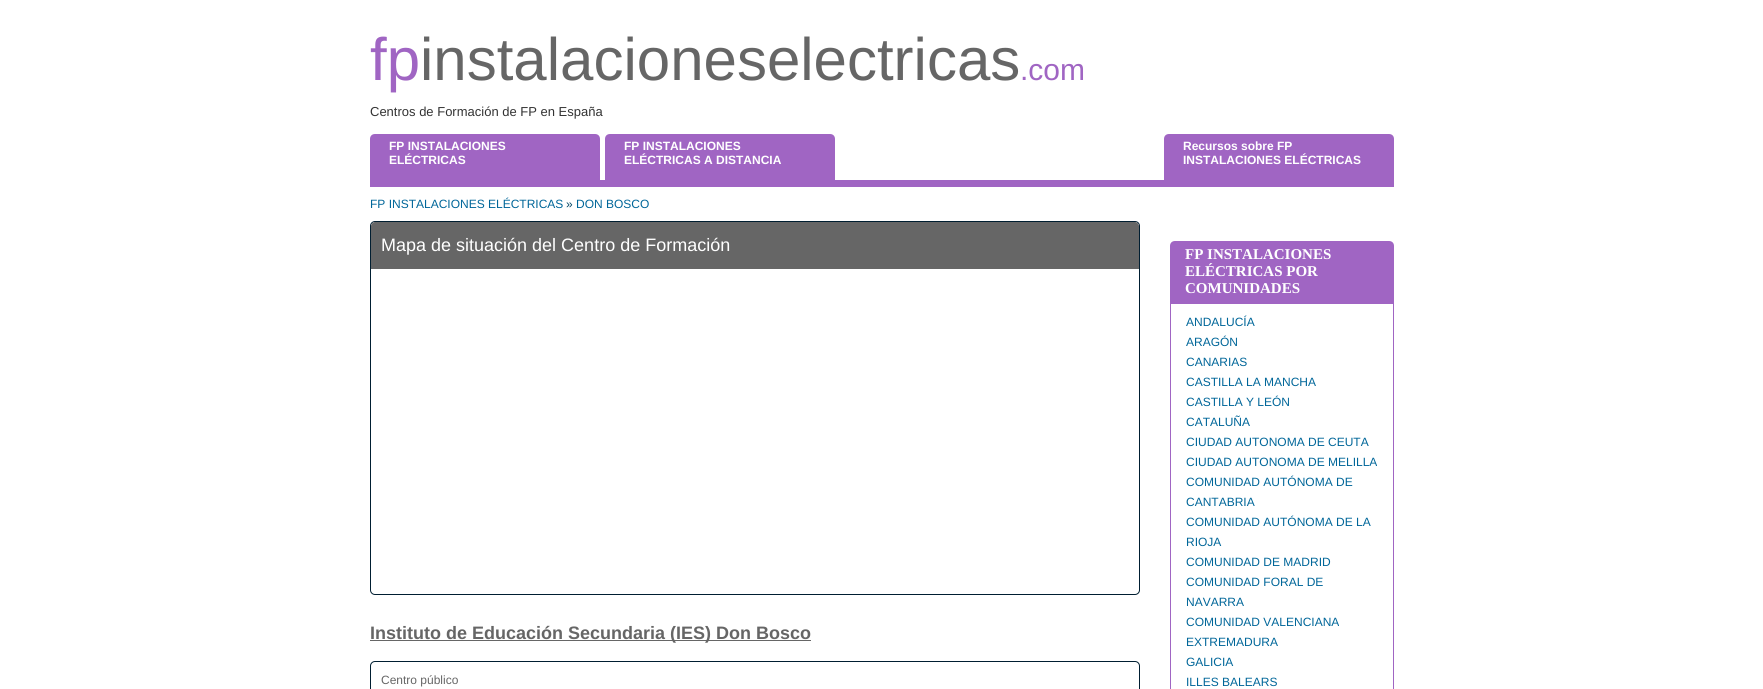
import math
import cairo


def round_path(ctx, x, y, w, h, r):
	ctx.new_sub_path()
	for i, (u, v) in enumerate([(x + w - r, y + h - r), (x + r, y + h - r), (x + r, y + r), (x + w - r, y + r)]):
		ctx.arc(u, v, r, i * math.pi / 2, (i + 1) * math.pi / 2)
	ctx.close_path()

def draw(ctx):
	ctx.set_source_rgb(1, 1, 1)
	ctx.paint()
	ctx.set_source_rgb(0.627, 0.396, 0.765)
	ctx.rectangle(370, 180, 1024, 7)
	ctx.fill()
	ctx.select_font_face('Liberation Sans')
	ctx.set_font_size(60)
	ctx.move_to(370, 80)
	ctx.show_text('fp')
	ctx.set_source_rgb(0.4, 0.4, 0.4)
	ctx.move_to(420, 80)
	ctx.show_text('instalacioneselectricas')
	ctx.set_font_size(30)
	ctx.set_source_rgb(0.627, 0.396, 0.765)
	ctx.move_to(1020, 80)
	ctx.show_text('.com')
	ctx.set_font_size(13)
	ctx.set_source_rgb(0.2, 0.2, 0.2)
	ctx.move_to(370, 116)
	ctx.show_text('Centros de Formación de FP en España')
	ctx.set_source_rgb(0.627, 0.396, 0.765)
	ctx.new_path()
	ctx.move_to(375, 134)
	ctx.line_to(595, 134)
	ctx.curve_to(598, 134, 600, 136, 600, 139)
	ctx.line_to(600, 180)
	ctx.line_to(370, 180)
	ctx.line_to(370, 139)
	ctx.curve_to(370, 136, 372, 134, 375, 134)
	ctx.close_path()
	ctx.fill()
	ctx.select_font_face('Liberation Sans', cairo.FONT_SLANT_NORMAL, cairo.FONT_WEIGHT_BOLD)
	ctx.set_font_size(12)
	ctx.set_source_rgb(1, 1, 1)
	ctx.move_to(389, 150)
	ctx.show_text('FP INSTALACIONES')
	ctx.move_to(389, 164)
	ctx.show_text('ELÉCTRICAS')
	ctx.set_source_rgb(0.627, 0.396, 0.765)
	ctx.new_path()
	ctx.move_to(610, 134)
	ctx.line_to(830, 134)
	ctx.curve_to(833, 134, 835, 136, 835, 139)
	ctx.line_to(835, 180)
	ctx.line_to(605, 180)
	ctx.line_to(605, 139)
	ctx.curve_to(605, 136, 607, 134, 610, 134)
	ctx.close_path()
	ctx.fill()
	ctx.set_source_rgb(1, 1, 1)
	ctx.move_to(624, 150)
	ctx.show_text('FP INSTALACIONES')
	ctx.move_to(624, 164)
	ctx.show_text('ELÉCTRICAS A DISTANCIA')
	ctx.set_source_rgb(0.627, 0.396, 0.765)
	ctx.new_path()
	ctx.move_to(1169, 134)
	ctx.line_to(1389, 134)
	ctx.curve_to(1392, 134, 1394, 136, 1394, 139)
	ctx.line_to(1394, 180)
	ctx.line_to(1164, 180)
	ctx.line_to(1164, 139)
	ctx.curve_to(1164, 136, 1166, 134, 1169, 134)
	ctx.close_path()
	ctx.fill()
	ctx.set_source_rgb(1, 1, 1)
	ctx.move_to(1183, 150)
	ctx.show_text('Recursos sobre FP')
	ctx.move_to(1183, 164)
	ctx.show_text('INSTALACIONES ELÉCTRICAS')
	ctx.select_font_face('Liberation Sans')
	ctx.set_source_rgb(0, 0.4, 0.6)
	ctx.move_to(370, 208)
	ctx.show_text('FP INSTALACIONES ELÉCTRICAS')
	ctx.set_source_rgb(0, 0.271, 0.396)
	ctx.move_to(566, 208)
	ctx.show_text('»')
	ctx.set_source_rgb(0, 0.4, 0.6)
	ctx.move_to(576, 208)
	ctx.show_text('DON BOSCO')
	round_path(ctx, 370.5, 221.5, 769, 373, 4.5)
	ctx.set_source_rgb(0, 0.118, 0.192)
	ctx.set_line_width(1)
	ctx.stroke()
	ctx.set_source_rgb(0.4, 0.4, 0.4)
	ctx.new_path()
	ctx.move_to(375, 222)
	ctx.line_to(1135, 222)
	ctx.curve_to(1137, 222, 1139, 224, 1139, 226)
	ctx.line_to(1139, 269)
	ctx.line_to(371, 269)
	ctx.line_to(371, 226)
	ctx.curve_to(371, 224, 373, 222, 375, 222)
	ctx.close_path()
	ctx.fill()
	ctx.set_font_size(18)
	ctx.set_source_rgb(1, 1, 1)
	ctx.move_to(381, 251)
	ctx.show_text('Mapa de situación del Centro de Formación')
	ctx.set_source_rgb(0.4, 0.4, 0.4)
	ctx.rectangle(370, 640, 441, 1)
	ctx.fill()
	ctx.select_font_face('Liberation Sans', cairo.FONT_SLANT_NORMAL, cairo.FONT_WEIGHT_BOLD)
	ctx.move_to(370, 639)
	ctx.show_text('Instituto de Educación Secundaria (IES) Don Bosco')
	round_path(ctx, 370.5, 661.5, 769, 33, 4.5)
	ctx.set_source_rgb(0, 0.118, 0.192)
	ctx.stroke()
	ctx.select_font_face('Liberation Sans')
	ctx.set_font_size(12)
	ctx.set_source_rgb(0.4, 0.4, 0.4)
	ctx.move_to(381, 684)
	ctx.show_text('Centro público')
	ctx.set_source_rgb(0.627, 0.396, 0.765)
	ctx.new_path()
	ctx.move_to(1175, 241)
	ctx.line_to(1389, 241)
	ctx.curve_to(1392, 241, 1394, 243, 1394, 246)
	ctx.line_to(1394, 303)
	ctx.line_to(1170, 303)
	ctx.line_to(1170, 246)
	ctx.curve_to(1170, 243, 1172, 241, 1175, 241)
	ctx.close_path()
	ctx.fill()
	ctx.select_font_face('Liberation Serif', cairo.FONT_SLANT_NORMAL, cairo.FONT_WEIGHT_BOLD)
	ctx.set_font_size(15)
	ctx.set_source_rgb(1, 1, 1)
	for x, y, s in [
		(1185, 259, 'FP INSTALACIONES'),
		(1185, 276, 'ELÉCTRICAS POR'),
		(1185, 293, 'COMUNIDADES'),
	]:
		ctx.move_to(x, y)
		ctx.show_text(s)
	ctx.rectangle(1170.5, 303.5, 223, 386)
	ctx.set_source_rgb(0.627, 0.396, 0.765)
	ctx.stroke()
	ctx.select_font_face('Liberation Sans')
	ctx.set_font_size(12)
	ctx.set_source_rgb(0, 0.4, 0.6)
	for x, y, s in [
		(1186, 326, 'ANDALUCÍA'),
		(1186, 346, 'ARAGÓN'),
		(1186, 366, 'CANARIAS'),
		(1186, 386, 'CASTILLA LA MANCHA'),
		(1186, 406, 'CASTILLA Y LEÓN'),
		(1186, 426, 'CATALUÑA'),
		(1186, 446, 'CIUDAD AUTONOMA DE CEUTA'),
		(1186, 466, 'CIUDAD AUTONOMA DE MELILLA'),
		(1186, 486, 'COMUNIDAD AUTÓNOMA DE'),
		(1186, 506, 'CANTABRIA'),
		(1186, 526, 'COMUNIDAD AUTÓNOMA DE LA'),
		(1186, 546, 'RIOJA'),
		(1186, 566, 'COMUNIDAD DE MADRID'),
		(1186, 586, 'COMUNIDAD FORAL DE'),
		(1186, 606, 'NAVARRA'),
		(1186, 626, 'COMUNIDAD VALENCIANA'),
		(1186, 646, 'EXTREMADURA'),
		(1186, 666, 'GALICIA'),
		(1186, 686, 'ILLES BALEARS'),
	]:
		ctx.move_to(x, y)
		ctx.show_text(s)


surface = cairo.ImageSurface(cairo.FORMAT_RGB24, 1763, 689)
ctx = cairo.Context(surface)
options = cairo.FontOptions()
options.set_hint_metrics(cairo.HINT_METRICS_OFF)
options.set_hint_style(cairo.HINT_STYLE_NONE)
ctx.set_font_options(options)
ctx.set_miter_limit(4)
draw(ctx)
surface.write_to_png('image.png')
